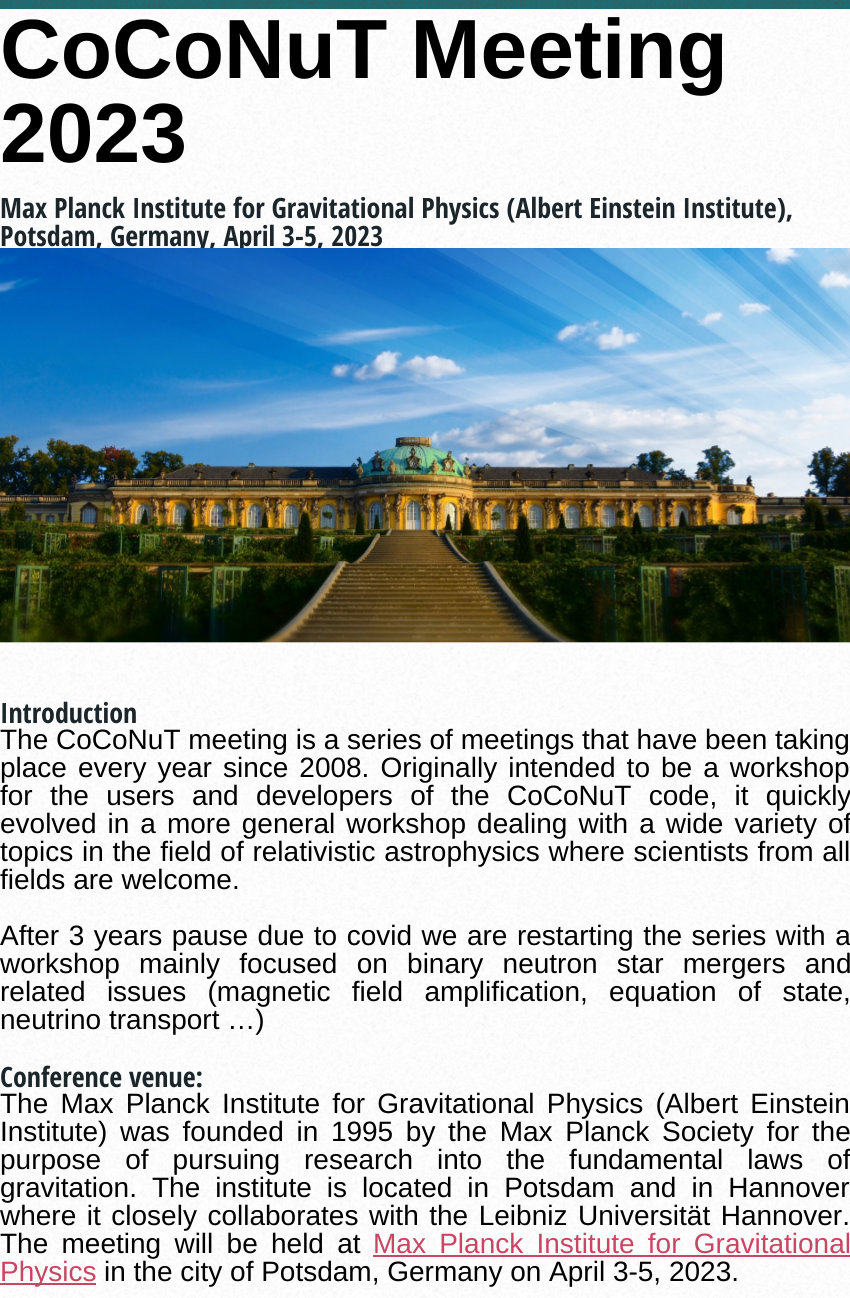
import math
import cairo


def write_spaced(ctx, x, y, s, letter, word):
	ctx.move_to(x, y)
	for ch in s:
		ctx.show_text(ch)
		ctx.rel_move_to(letter + word * (ch == ' '), 0)

def paste(ctx, path, x, y, w, h):
	ctx.save()
	ctx.set_source_surface(cairo.ImageSurface.create_from_png(path), x, y)
	ctx.rectangle(x, y, w, h)
	ctx.fill()
	ctx.restore()

def draw(ctx):
	ctx.set_source_rgb(0.027, 0.482, 0.514)
	ctx.paint()
	paste(ctx, 'media/1.png', 0, 0, 850, 9)
	ctx.set_source_rgb(1, 1, 1)
	ctx.rectangle(0, 9, 850, 1289)
	ctx.fill()
	paste(ctx, 'media/2.png', 0, 9, 850, 1289)
	ctx.select_font_face('Liberation Sans', cairo.FONT_SLANT_NORMAL, cairo.FONT_WEIGHT_BOLD)
	ctx.set_font_size(84)
	ctx.set_source_rgb(0, 0, 0)
	ctx.move_to(0, 78)
	ctx.show_text('CoCoNuT Meeting')
	ctx.move_to(0, 162)
	ctx.show_text('2023')
	ctx.select_font_face('Open Sans Condensed', cairo.FONT_SLANT_NORMAL, cairo.FONT_WEIGHT_BOLD)
	ctx.set_font_size(28)
	ctx.set_source_rgb(0.106, 0.145, 0.165)
	ctx.move_to(0, 218)
	ctx.show_text('Max Planck Institute for Gravitational Physics (Albert Einstein Institute),')
	ctx.move_to(0, 246)
	ctx.show_text('Potsdam, Germany, April 3-5, 2023')
	paste(ctx, 'media/3.png', 0, 248, 850, 395)
	ctx.move_to(0, 723)
	ctx.show_text('Introduction')
	ctx.select_font_face('Liberation Sans')
	ctx.set_source_rgb(0, 0, 0)
	ctx.move_to(0, 749)
	ctx.show_text('The CoCoNuT meeting is a series of meetings that have been taking')
	write_spaced(ctx, 0, 777, 'place every year since 2008. Originally intended to be a workshop', 0, 3.25)
	write_spaced(ctx, 0, 805, 'for the users and developers of the CoCoNuT code, it quickly', 0, 9.5)
	write_spaced(ctx, 0, 833, 'evolved in a more general workshop dealing with a wide variety of', 0, 3.25)
	write_spaced(ctx, 0, 861, 'topics in the field of relativistic astrophysics where scientists from all', 0, 1)
	ctx.move_to(0, 889)
	ctx.show_text('fields are welcome.')
	write_spaced(ctx, 0, 945, 'After 3 years pause due to covid we are restarting the series with a', 0, 1.75)
	write_spaced(ctx, 0, 973, 'workshop mainly focused on binary neutron star mergers and', 0, 11.5)
	write_spaced(ctx, 0, 1001, 'related issues (magnetic field amplification, equation of state,', 0, 13.5)
	ctx.move_to(0, 1029)
	ctx.show_text('neutrino transport …)')
	ctx.select_font_face('Open Sans Condensed', cairo.FONT_SLANT_NORMAL, cairo.FONT_WEIGHT_BOLD)
	ctx.set_source_rgb(0.106, 0.145, 0.165)
	ctx.move_to(0, 1087)
	ctx.show_text('Conference venue:')
	ctx.select_font_face('Liberation Sans')
	ctx.set_source_rgb(0, 0, 0)
	write_spaced(ctx, 0, 1113, 'The Max Planck Institute for Gravitational Physics (Albert Einstein', 0, 4.5)
	write_spaced(ctx, 0, 1141, 'Institute) was founded in 1995 by the Max Planck Society for the', 0, 4.9)
	write_spaced(ctx, 0, 1169, 'purpose of pursuing research into the fundamental laws of', 0, 16.25)
	write_spaced(ctx, 0, 1197, 'gravitation. The institute is located in Potsdam and in Hannover', 0, 7.25)
	write_spaced(ctx, 0, 1225, 'where it closely collaborates with the Leibniz Universität Hannover.', 0, 2.75)
	write_spaced(ctx, 0, 1253, 'The meeting will be held at', 0, 5.5)
	ctx.set_source_rgb(0.788, 0.275, 0.388)
	write_spaced(ctx, 373, 1253, 'Max Planck Institute for Gravitational', 0, 5.5)
	ctx.rectangle(373, 1255, 477, 2)
	ctx.fill()
	ctx.rectangle(0, 1283, 96, 2)
	ctx.fill()
	ctx.move_to(0, 1281)
	ctx.show_text('Physics')
	ctx.set_source_rgb(0, 0, 0)
	ctx.move_to(104, 1281)
	ctx.show_text('in the city of Potsdam, Germany on April 3-5, 2023.')


surface = cairo.ImageSurface(cairo.FORMAT_RGB24, 850, 1298)
ctx = cairo.Context(surface)
options = cairo.FontOptions()
options.set_hint_metrics(cairo.HINT_METRICS_OFF)
options.set_hint_style(cairo.HINT_STYLE_NONE)
ctx.set_font_options(options)
ctx.set_miter_limit(4)
draw(ctx)
surface.write_to_png('image.png')
